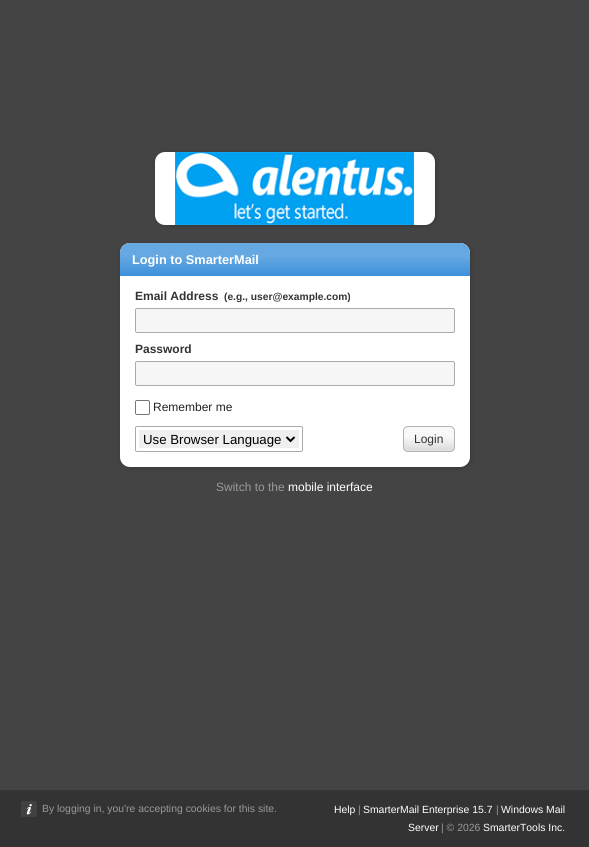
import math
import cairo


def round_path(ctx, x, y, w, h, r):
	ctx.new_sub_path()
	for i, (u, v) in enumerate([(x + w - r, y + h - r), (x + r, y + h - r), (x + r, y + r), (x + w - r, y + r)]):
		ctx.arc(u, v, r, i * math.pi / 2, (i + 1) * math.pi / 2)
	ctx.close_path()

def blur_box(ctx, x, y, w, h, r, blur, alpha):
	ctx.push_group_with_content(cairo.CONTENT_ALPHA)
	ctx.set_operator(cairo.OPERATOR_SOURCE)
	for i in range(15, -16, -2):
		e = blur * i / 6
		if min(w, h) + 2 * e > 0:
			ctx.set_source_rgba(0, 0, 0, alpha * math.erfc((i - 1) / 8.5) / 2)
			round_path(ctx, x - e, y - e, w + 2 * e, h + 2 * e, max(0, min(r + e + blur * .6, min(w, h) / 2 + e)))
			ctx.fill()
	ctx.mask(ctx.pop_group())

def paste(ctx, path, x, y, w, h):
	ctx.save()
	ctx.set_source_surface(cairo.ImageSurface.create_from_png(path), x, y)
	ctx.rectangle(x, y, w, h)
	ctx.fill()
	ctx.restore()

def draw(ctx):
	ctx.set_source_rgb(0.267, 0.267, 0.267)
	ctx.paint()
	ctx.set_source_rgb(0, 0, 0)
	blur_box(ctx, 156, 153, 280, 73, 10, 2.5, 0.2)
	ctx.set_source_rgb(1, 1, 1)
	round_path(ctx, 155, 152, 280, 73, 10)
	ctx.fill()
	paste(ctx, 'media/1.png', 175, 152, 239, 73)
	ctx.set_source_rgb(0, 0, 0)
	blur_box(ctx, 121, 244, 350, 224, 10, 2.5, 0.2)
	ctx.set_source_rgb(1, 1, 1)
	round_path(ctx, 120, 243, 350, 224, 10)
	ctx.fill()
	gradient = cairo.LinearGradient(295, 243, 295, 276)
	gradient.add_color_stop_rgba(0.4, 0.4, 0.659, 0.886, 1)
	gradient.add_color_stop_rgba(1, 0.235, 0.565, 0.855, 1)
	ctx.set_source(gradient)
	ctx.new_path()
	ctx.move_to(130, 243)
	ctx.line_to(460, 243)
	ctx.curve_to(465.5, 243, 470, 247.5, 470, 253)
	ctx.line_to(470, 276)
	ctx.line_to(120, 276)
	ctx.line_to(120, 253)
	ctx.curve_to(120, 247.5, 124.5, 243, 130, 243)
	ctx.close_path()
	ctx.fill()
	ctx.select_font_face('Liberation Sans', cairo.FONT_SLANT_NORMAL, cairo.FONT_WEIGHT_BOLD)
	ctx.set_font_size(12.75)
	ctx.set_source_rgb(1, 1, 1)
	ctx.move_to(132, 264)
	ctx.show_text('Login to SmarterMail')
	ctx.set_font_size(12)
	ctx.set_source_rgb(0.2, 0.2, 0.2)
	ctx.move_to(135, 300)
	ctx.show_text('Email Address')
	ctx.set_font_size(10.25)
	ctx.move_to(224, 300)
	ctx.show_text('(e.g., user@example.com)')
	ctx.set_source_rgb(0.961, 0.961, 0.961)
	round_path(ctx, 135.5, 308.5, 319, 24, 1.5)
	ctx.fill_preserve()
	ctx.set_source_rgb(0.667, 0.667, 0.667)
	ctx.set_line_width(1)
	ctx.stroke()
	ctx.set_font_size(12)
	ctx.set_source_rgb(0.2, 0.2, 0.2)
	ctx.move_to(135, 353)
	ctx.show_text('Password')
	ctx.set_source_rgb(0.961, 0.961, 0.961)
	round_path(ctx, 135.5, 361.5, 319, 24, 1.5)
	ctx.fill_preserve()
	ctx.set_source_rgb(0.667, 0.667, 0.667)
	ctx.stroke()
	round_path(ctx, 135.5, 400.5, 14, 14, 1.5)
	ctx.set_source_rgb(0.463, 0.463, 0.463)
	ctx.stroke()
	ctx.select_font_face('Liberation Sans')
	ctx.set_source_rgb(0.133, 0.133, 0.133)
	ctx.move_to(153, 411)
	ctx.show_text('Remember me')
	round_path(ctx, 135.5, 426.5, 167, 25, 1.5)
	ctx.set_source_rgb(0.667, 0.667, 0.667)
	ctx.stroke()
	ctx.set_source_rgb(0.937, 0.937, 0.937)
	ctx.rectangle(139, 430, 160, 18)
	ctx.fill()
	ctx.new_path()
	ctx.move_to(286.5, 437)
	ctx.line_to(290.5, 441)
	ctx.line_to(294.5, 437)
	ctx.set_source_rgb(0, 0, 0)
	ctx.set_line_width(2)
	ctx.stroke()
	ctx.set_font_size(13.25)
	ctx.move_to(143, 444)
	ctx.show_text('Use Browser Language')
	ctx.save()
	round_path(ctx, 403, 426, 52, 26, 5)
	ctx.clip()
	gradient = cairo.LinearGradient(429, 427, 429, 451)
	gradient.add_color_stop_rgba(0.4, 0.973, 0.973, 0.973, 1)
	gradient.add_color_stop_rgba(0.9, 0.875, 0.875, 0.875, 1)
	ctx.set_source(gradient)
	ctx.rectangle(403, 427, 52, 24)
	ctx.fill()
	ctx.restore()
	round_path(ctx, 403.5, 426.5, 51, 25, 4.5)
	ctx.set_source_rgb(0.702, 0.702, 0.702)
	ctx.set_line_width(1)
	ctx.stroke()
	ctx.set_font_size(12)
	ctx.set_source_rgb(0.2, 0.2, 0.2)
	ctx.move_to(414, 443)
	ctx.show_text('Login')
	ctx.set_source_rgb(0.6, 0.6, 0.6)
	ctx.move_to(216, 491)
	ctx.show_text('Switch to the')
	ctx.set_source_rgb(1, 1, 1)
	ctx.move_to(288, 491)
	ctx.show_text('mobile interface')
	ctx.set_source_rgb(0.2, 0.2, 0.2)
	ctx.rectangle(0, 790, 589, 57)
	ctx.fill()
	ctx.set_source_rgb(0.255, 0.255, 0.255)
	round_path(ctx, 21, 801, 16, 16, 2)
	ctx.fill()
	paste(ctx, 'media/2.png', 26, 804, 6, 11)
	ctx.set_font_size(10.4)
	ctx.set_source_rgb(0.6, 0.6, 0.6)
	ctx.move_to(42, 812)
	ctx.show_text('By logging in, you\'re accepting cookies for this site.')
	ctx.set_source_rgb(1, 1, 1)
	ctx.move_to(334, 813)
	ctx.show_text('Help')
	ctx.set_source_rgb(0.6, 0.6, 0.6)
	ctx.move_to(358, 813)
	ctx.show_text('|')
	ctx.set_source_rgb(1, 1, 1)
	ctx.move_to(363, 813)
	ctx.show_text('SmarterMail Enterprise 15.7')
	ctx.set_source_rgb(0.6, 0.6, 0.6)
	ctx.move_to(496, 813)
	ctx.show_text('|')
	ctx.set_source_rgb(1, 1, 1)
	ctx.move_to(501, 813)
	ctx.show_text('Windows Mail')
	ctx.move_to(408, 831)
	ctx.show_text('Server')
	ctx.set_source_rgb(0.6, 0.6, 0.6)
	ctx.move_to(441, 831)
	ctx.show_text('| © 2026')
	ctx.set_source_rgb(1, 1, 1)
	ctx.move_to(483, 831)
	ctx.show_text('SmarterTools Inc.')


surface = cairo.ImageSurface(cairo.FORMAT_RGB24, 589, 847)
ctx = cairo.Context(surface)
options = cairo.FontOptions()
options.set_hint_metrics(cairo.HINT_METRICS_OFF)
options.set_hint_style(cairo.HINT_STYLE_NONE)
ctx.set_font_options(options)
ctx.set_miter_limit(4)
draw(ctx)
surface.write_to_png('image.png')
